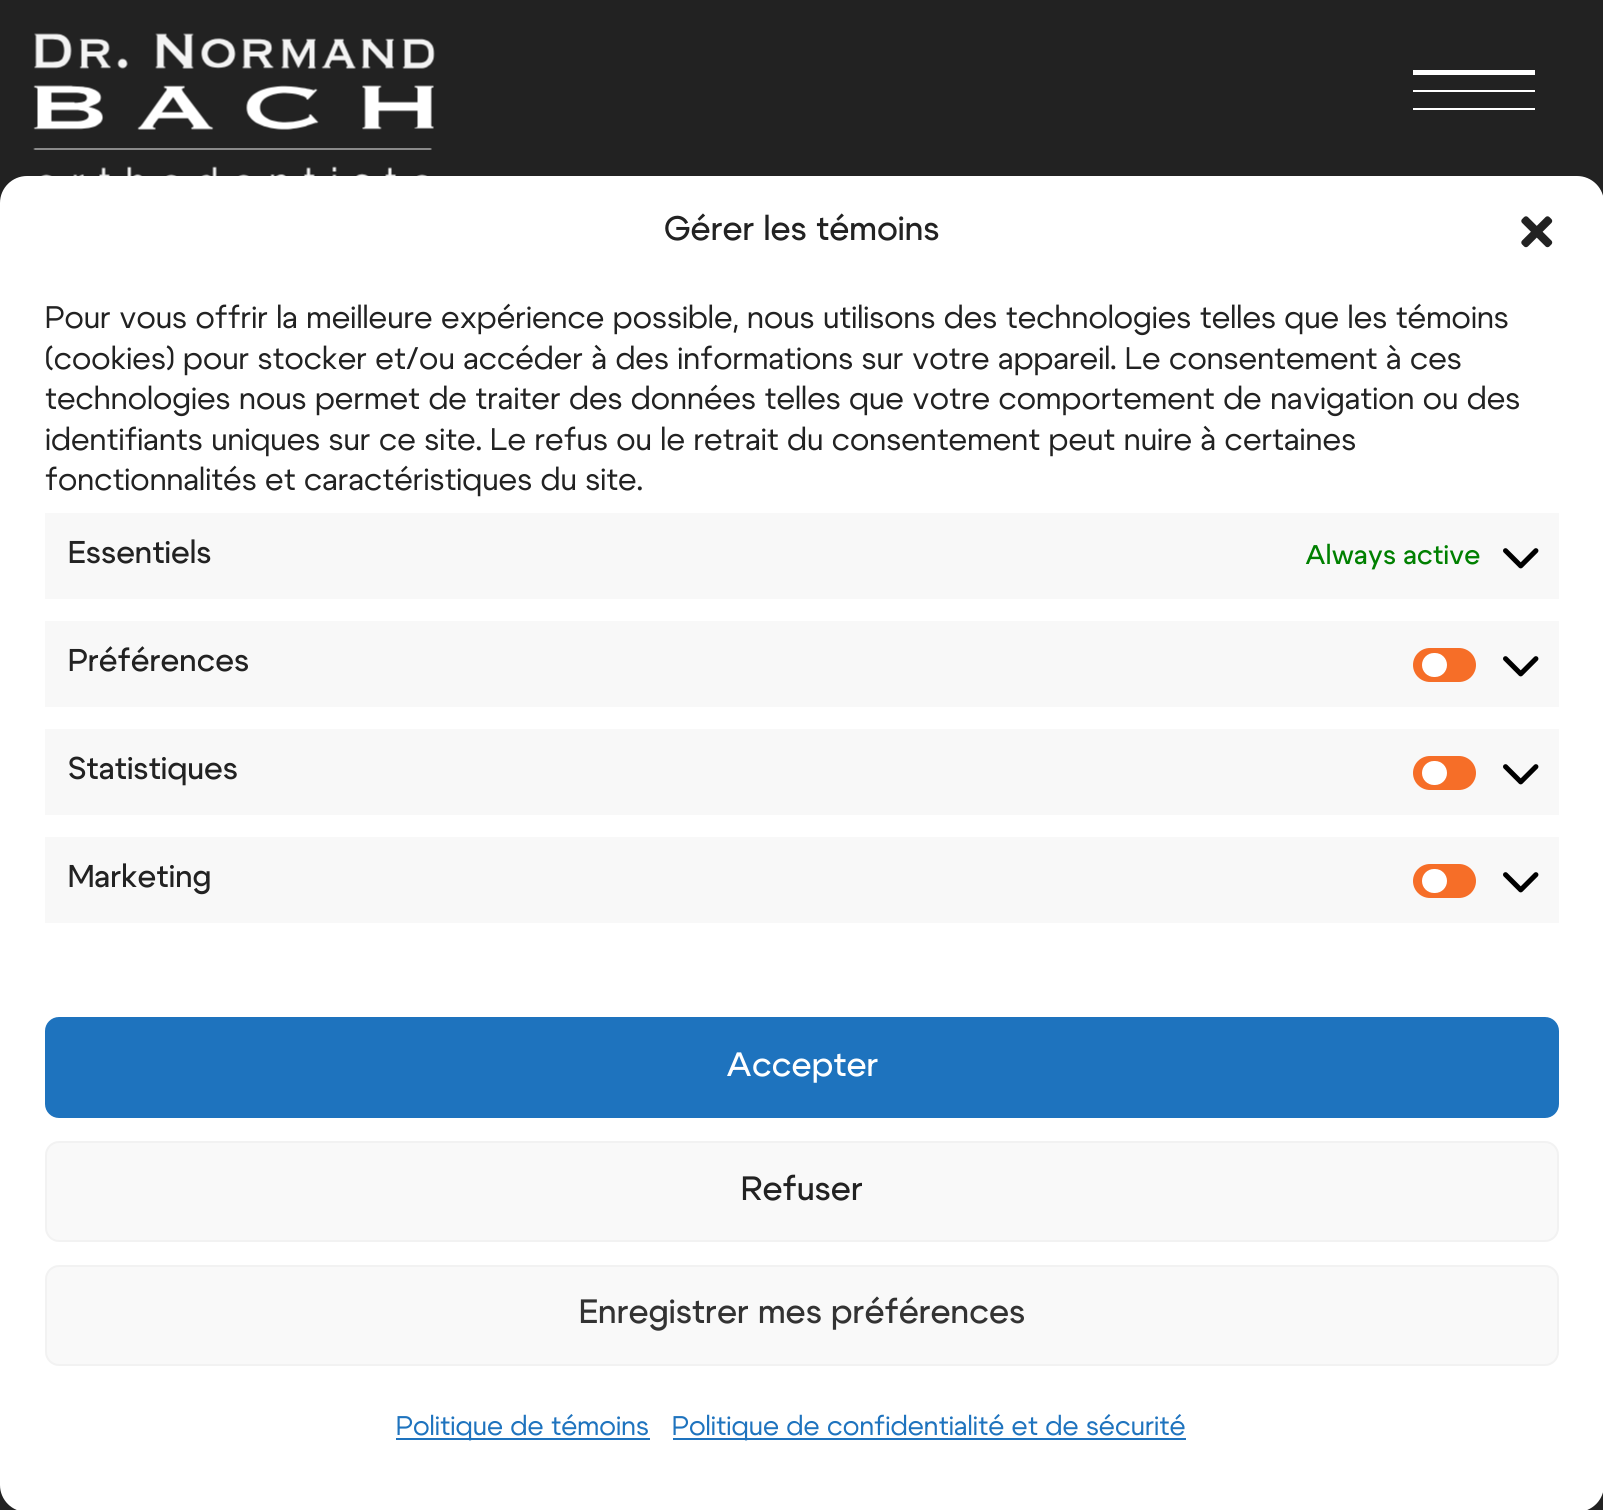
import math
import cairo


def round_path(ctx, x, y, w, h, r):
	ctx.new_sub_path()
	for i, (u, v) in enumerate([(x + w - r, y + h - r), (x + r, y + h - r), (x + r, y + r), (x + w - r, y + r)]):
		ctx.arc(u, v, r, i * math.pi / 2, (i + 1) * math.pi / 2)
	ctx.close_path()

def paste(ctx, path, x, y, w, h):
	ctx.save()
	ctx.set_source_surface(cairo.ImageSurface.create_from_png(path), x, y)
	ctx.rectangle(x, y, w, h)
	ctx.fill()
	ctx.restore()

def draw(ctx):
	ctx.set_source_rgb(0.133, 0.133, 0.133)
	ctx.paint()
	paste(ctx, 'media/1.png', 33, 33, 402, 143)
	ctx.set_source_rgb(1, 1, 1)
	ctx.rectangle(1413, 70, 122, 5)
	ctx.rectangle(1413, 90, 122, 2)
	ctx.rectangle(1413, 108, 122, 2)
	ctx.fill()
	round_path(ctx, 0, 176, 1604, 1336, 27)
	ctx.fill()
	ctx.select_font_face('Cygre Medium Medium')
	ctx.set_font_size(33.75)
	ctx.set_source_rgb(0.133, 0.133, 0.133)
	ctx.move_to(664, 240)
	ctx.show_text('Gérer les témoins')
	paste(ctx, 'media/2.png', 1521, 216, 32, 32)
	ctx.select_font_face('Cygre')
	ctx.set_font_size(31.2)
	for x, y, s in [
		(45, 328, 'Pour vous offrir la meilleure expérience possible, nous utilisons des technologies telles que les témoins'),
		(45, 369, '(cookies) pour stocker et/ou accéder à des informations sur votre appareil. Le consentement à ces'),
		(45, 409, 'technologies nous permet de traiter des données telles que votre comportement de navigation ou des'),
		(45, 450, 'identifiants uniques sur ce site. Le refus ou le retrait du consentement peut nuire à certaines'),
		(45, 490, 'fonctionnalités et caractéristiques du site.'),
	]:
		ctx.move_to(x, y)
		ctx.show_text(s)
	ctx.set_source_rgb(0.969, 0.969, 0.969)
	ctx.rectangle(45, 513, 1514, 86)
	ctx.fill()
	ctx.select_font_face('Cygre Medium Medium')
	ctx.set_font_size(31.5)
	ctx.set_source_rgb(0.133, 0.133, 0.133)
	ctx.move_to(68, 563)
	ctx.show_text('Essentiels')
	ctx.set_font_size(27)
	ctx.set_source_rgb(0, 0.502, 0)
	ctx.move_to(1305, 564)
	ctx.show_text('Always active')
	paste(ctx, 'media/3.png', 1503, 548, 36, 21)
	ctx.set_source_rgb(0.969, 0.969, 0.969)
	ctx.rectangle(45, 621, 1514, 86)
	ctx.fill()
	ctx.set_font_size(31.5)
	ctx.set_source_rgb(0.133, 0.133, 0.133)
	ctx.move_to(68, 671)
	ctx.show_text('Préférences')
	ctx.set_source_rgb(0.961, 0.431, 0.157)
	round_path(ctx, 1413, 648, 63, 34, 17)
	ctx.fill()
	ctx.set_source_rgb(1, 1, 1)
	round_path(ctx, 1422, 653, 25, 24, 12)
	ctx.fill()
	paste(ctx, 'media/3.png', 1503, 656, 36, 21)
	ctx.set_source_rgb(0.969, 0.969, 0.969)
	ctx.rectangle(45, 729, 1514, 86)
	ctx.fill()
	ctx.set_source_rgb(0.133, 0.133, 0.133)
	ctx.move_to(68, 779)
	ctx.show_text('Statistiques')
	ctx.set_source_rgb(0.961, 0.431, 0.157)
	round_path(ctx, 1413, 756, 63, 34, 17)
	ctx.fill()
	ctx.set_source_rgb(1, 1, 1)
	round_path(ctx, 1422, 761, 25, 24, 12)
	ctx.fill()
	paste(ctx, 'media/3.png', 1503, 764, 36, 21)
	ctx.set_source_rgb(0.969, 0.969, 0.969)
	ctx.rectangle(45, 837, 1514, 86)
	ctx.fill()
	ctx.set_source_rgb(0.133, 0.133, 0.133)
	ctx.move_to(68, 887)
	ctx.show_text('Marketing')
	ctx.set_source_rgb(0.961, 0.431, 0.157)
	round_path(ctx, 1413, 864, 63, 34, 17)
	ctx.fill()
	ctx.set_source_rgb(1, 1, 1)
	round_path(ctx, 1422, 869, 25, 24, 12)
	ctx.fill()
	paste(ctx, 'media/3.png', 1503, 872, 36, 21)
	ctx.set_source_rgb(0.118, 0.451, 0.745)
	round_path(ctx, 46, 1018, 1512, 99, 13)
	ctx.fill_preserve()
	ctx.stroke()
	ctx.set_font_size(33.75)
	ctx.set_source_rgb(1, 1, 1)
	ctx.move_to(726, 1076)
	ctx.show_text('Accepter')
	ctx.set_source_rgb(0.976, 0.976, 0.976)
	round_path(ctx, 46, 1142, 1512, 99, 13)
	ctx.fill_preserve()
	ctx.set_source_rgb(0.949, 0.949, 0.949)
	ctx.stroke()
	ctx.set_source_rgb(0.133, 0.133, 0.133)
	ctx.move_to(741, 1200)
	ctx.show_text('Refuser')
	ctx.set_source_rgb(0.976, 0.976, 0.976)
	round_path(ctx, 46, 1266, 1512, 99, 13)
	ctx.fill_preserve()
	ctx.set_source_rgb(0.949, 0.949, 0.949)
	ctx.stroke()
	ctx.set_source_rgb(0.2, 0.2, 0.2)
	ctx.move_to(579, 1323)
	ctx.show_text('Enregistrer mes préférences')
	ctx.set_source_rgb(0.118, 0.451, 0.745)
	ctx.rectangle(396, 1438, 254, 2)
	ctx.fill()
	ctx.select_font_face('Cygre')
	ctx.set_font_size(27)
	ctx.move_to(396, 1435)
	ctx.show_text('Politique de témoins')
	ctx.rectangle(673, 1438, 513, 2)
	ctx.fill()
	ctx.move_to(672, 1435)
	ctx.show_text('Politique de confidentialité et de sécurité')


surface = cairo.ImageSurface(cairo.FORMAT_RGB24, 1603, 1510)
ctx = cairo.Context(surface)
options = cairo.FontOptions()
options.set_hint_metrics(cairo.HINT_METRICS_OFF)
options.set_hint_style(cairo.HINT_STYLE_NONE)
ctx.set_font_options(options)
ctx.set_miter_limit(4)
draw(ctx)
surface.write_to_png('image.png')
